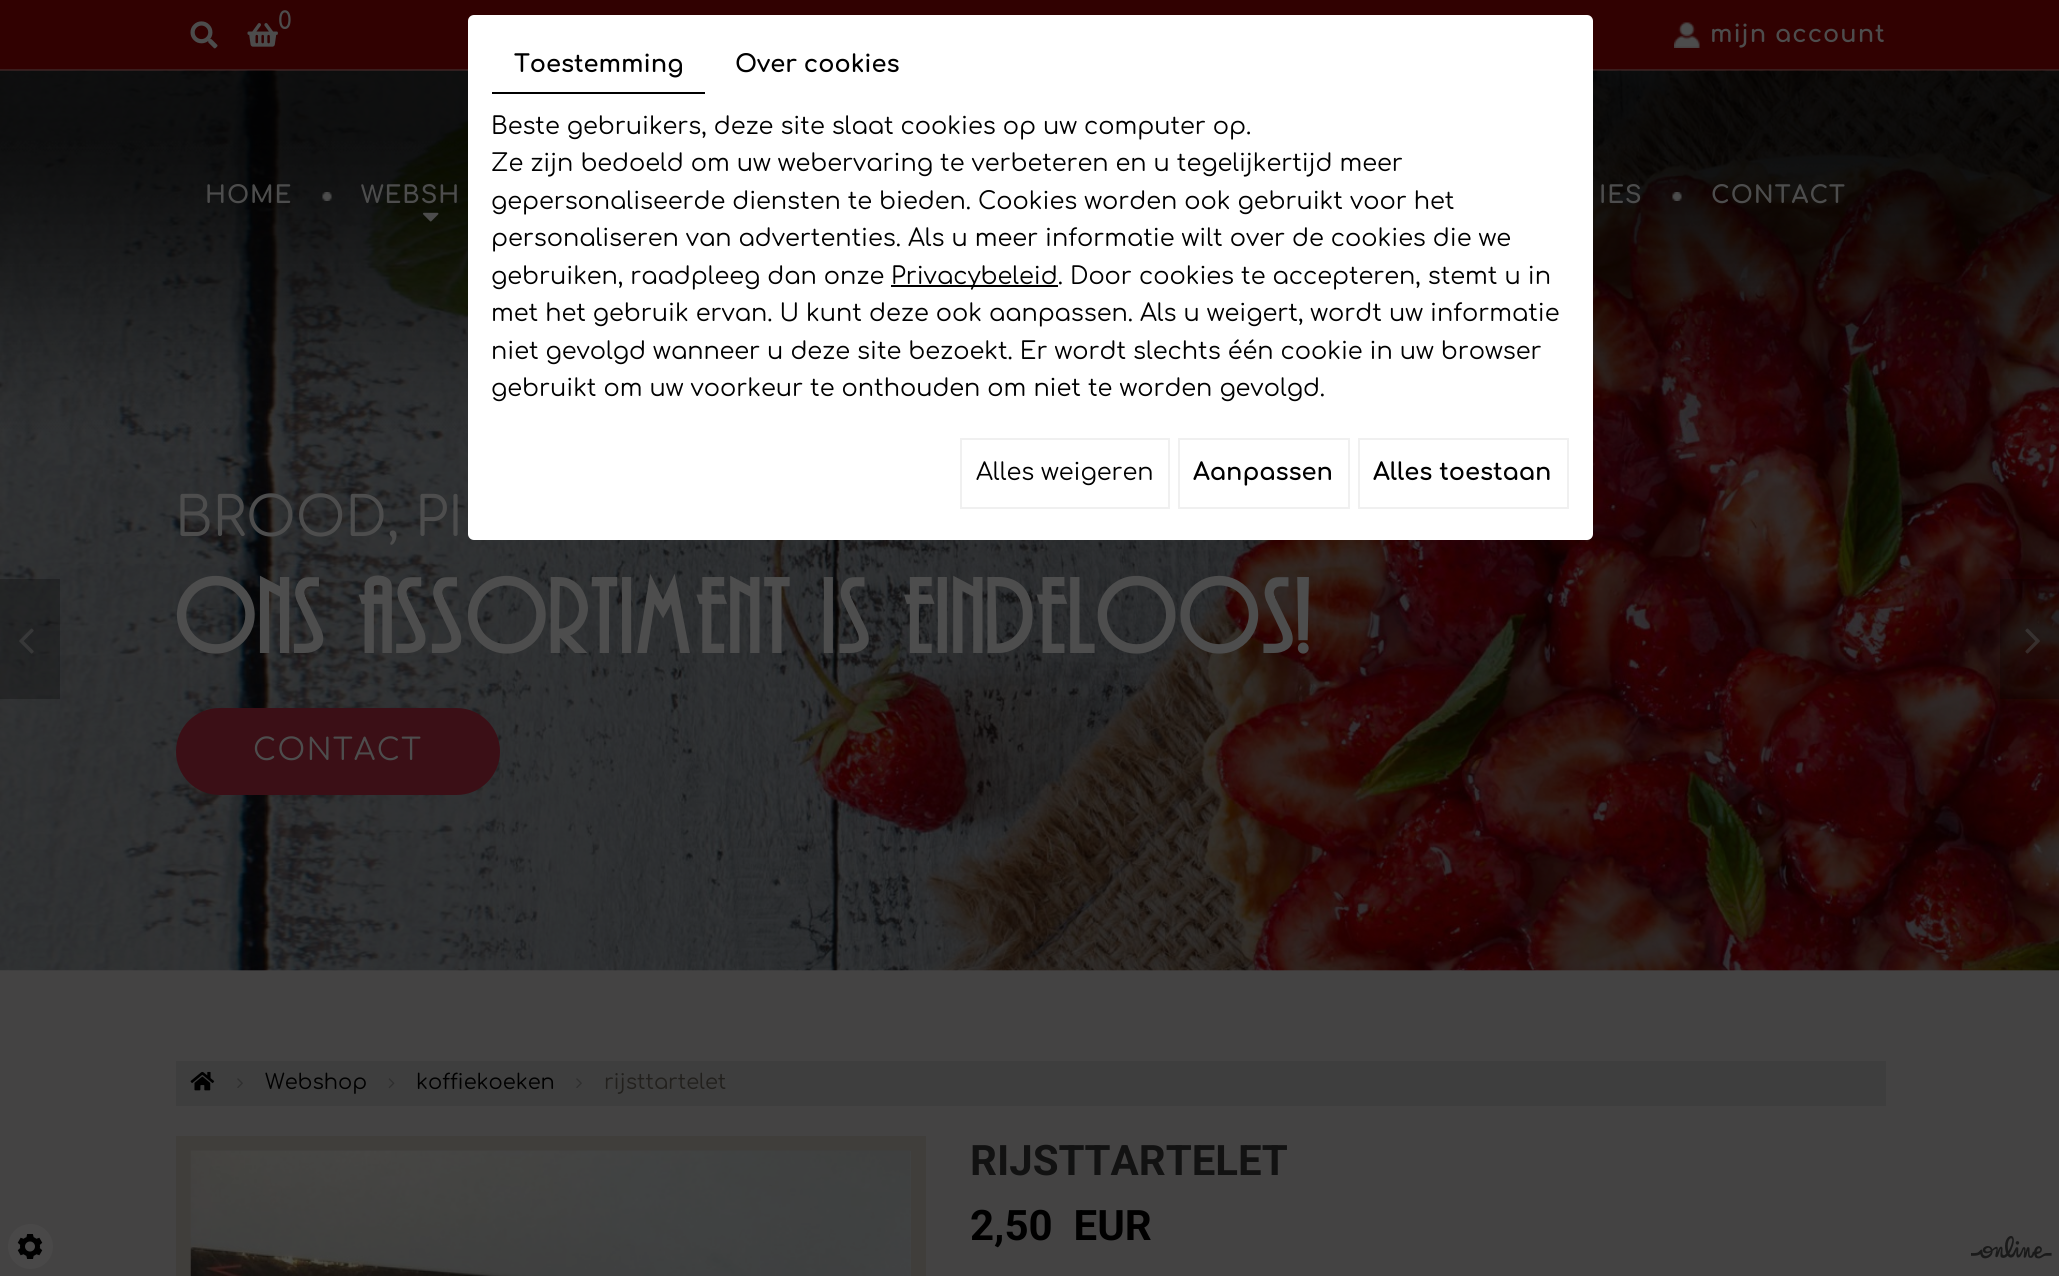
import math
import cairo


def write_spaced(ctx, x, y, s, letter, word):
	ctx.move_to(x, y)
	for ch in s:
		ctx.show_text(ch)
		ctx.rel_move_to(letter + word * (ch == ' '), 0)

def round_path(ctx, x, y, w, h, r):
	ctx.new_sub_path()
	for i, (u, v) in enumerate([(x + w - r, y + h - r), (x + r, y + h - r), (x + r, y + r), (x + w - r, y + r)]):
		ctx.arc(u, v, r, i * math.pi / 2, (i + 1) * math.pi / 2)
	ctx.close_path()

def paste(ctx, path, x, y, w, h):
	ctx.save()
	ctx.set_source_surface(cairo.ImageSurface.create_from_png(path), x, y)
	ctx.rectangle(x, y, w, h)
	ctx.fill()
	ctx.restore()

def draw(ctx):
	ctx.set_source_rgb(0.267, 0.263, 0.263)
	ctx.paint()
	ctx.set_source_rgb(0.192, 0.004, 0.004)
	ctx.rectangle(0, 0, 2059, 69)
	ctx.fill()
	paste(ctx, 'media/1.png', 190, 21, 28, 28)
	ctx.select_font_face('Comfortaa SemiBold')
	ctx.set_font_size(24)
	ctx.set_source_rgb(0.302, 0.302, 0.302)
	ctx.move_to(278, 29)
	ctx.show_text('0')
	paste(ctx, 'media/2.png', 247, 23, 31, 24)
	ctx.set_source_rgb(0.231, 0.11, 0.11)
	ctx.rectangle(0, 69, 2059, 2)
	ctx.fill()
	paste(ctx, 'media/6.png', 0, 70, 2059, 901)
	paste(ctx, 'media/7.png', 0, 70, 2059, 901)
	paste(ctx, 'media/3.png', 322, 192, 10, 9)
	ctx.select_font_face('Comfortaa', cairo.FONT_SLANT_NORMAL, cairo.FONT_WEIGHT_BOLD)
	ctx.set_source_rgb(0.302, 0.302, 0.302)
	write_spaced(ctx, 205, 203, 'HOME', 1, 0)
	write_spaced(ctx, 361, 203, 'WEBSH', 1, 0)
	paste(ctx, 'media/4.png', 423, 212, 16, 10)
	paste(ctx, 'media/5.png', 1672, 192, 10, 9)
	write_spaced(ctx, 1599, 203, 'IES', 1, 0)
	write_spaced(ctx, 1711, 203, 'CONTACT', 1, 0)
	ctx.select_font_face('Comfortaa')
	ctx.set_font_size(54)
	ctx.move_to(175, 536)
	ctx.show_text('BROOD, PI')
	ctx.select_font_face('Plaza', cairo.FONT_SLANT_NORMAL, cairo.FONT_WEIGHT_BOLD)
	ctx.set_font_size(97.5)
	ctx.move_to(175, 653)
	ctx.show_text('Ons assortiment is eindeloos!')
	ctx.set_source_rgb(0.231, 0.059, 0.086)
	round_path(ctx, 176, 708, 324, 87, 43.5)
	ctx.fill()
	ctx.select_font_face('Comfortaa')
	ctx.set_font_size(30)
	ctx.set_source_rgb(0.302, 0.302, 0.302)
	write_spaced(ctx, 253, 760, 'CONTACT', 1.5, 0)
	paste(ctx, 'media/8.png', 1674, 22, 26, 26)
	ctx.select_font_face('Comfortaa', cairo.FONT_SLANT_NORMAL, cairo.FONT_WEIGHT_BOLD)
	ctx.set_font_size(24)
	write_spaced(ctx, 1710, 42, 'mijn account', 1, 0)
	ctx.set_source_rgb(0.243, 0.243, 0.243)
	ctx.rectangle(176, 1061, 1710, 45)
	ctx.fill()
	paste(ctx, 'media/9.png', 190, 1071, 25, 20)
	paste(ctx, 'media/10.png', 237, 1078, 6, 10)
	ctx.select_font_face('Comfortaa')
	ctx.set_font_size(21)
	ctx.set_source_rgb(0, 0, 0)
	ctx.move_to(265, 1089)
	ctx.show_text('Webshop')
	paste(ctx, 'media/11.png', 388, 1078, 7, 11)
	ctx.move_to(416, 1089)
	ctx.show_text('koffiekoeken')
	paste(ctx, 'media/10.png', 576, 1078, 6, 10)
	ctx.set_source_rgb(0.133, 0.125, 0.114)
	ctx.move_to(604, 1089)
	ctx.show_text('rijsttartelet')
	ctx.set_source_rgba(0, 0, 0, 0.25)
	ctx.rectangle(0, 579, 60, 120)
	ctx.fill()
	paste(ctx, 'media/12.png', 19, 628, 15, 26)
	ctx.rectangle(2000, 579, 59, 120)
	ctx.fill()
	paste(ctx, 'media/13.png', 2025, 628, 15, 26)
	ctx.rectangle(183.5, 1143.5, 735, 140)
	ctx.set_source_rgb(0.251, 0.243, 0.231)
	ctx.set_line_width(15)
	ctx.stroke()
	paste(ctx, 'media/14.png', 190, 1150, 721, 126)
	ctx.select_font_face('Roboto', cairo.FONT_SLANT_NORMAL, cairo.FONT_WEIGHT_BOLD)
	ctx.set_font_size(42)
	ctx.set_source_rgb(0.071, 0.071, 0.071)
	ctx.move_to(970, 1175)
	ctx.show_text('RIJSTTARTELET')
	ctx.set_source_rgb(0, 0, 0)
	ctx.move_to(970, 1240)
	ctx.show_text('2,50  EUR')
	ctx.set_source_rgb(1, 1, 1)
	round_path(ctx, 468, 15, 1125, 525, 6)
	ctx.fill()
	ctx.set_source_rgb(0, 0, 0)
	ctx.rectangle(492, 92, 213, 2)
	ctx.fill()
	ctx.select_font_face('Comfortaa', cairo.FONT_SLANT_NORMAL, cairo.FONT_WEIGHT_BOLD)
	ctx.set_font_size(24)
	ctx.move_to(514, 72)
	ctx.show_text('Toestemming')
	ctx.move_to(735, 72)
	ctx.show_text('Over cookies')
	ctx.select_font_face('Comfortaa')
	for x, y, s in [
		(491, 134, 'Beste gebruikers, deze site slaat cookies op uw computer op.'),
		(491, 171, 'Ze zijn bedoeld om uw webervaring te verbeteren en u tegelijkertijd meer'),
		(491, 209, 'gepersonaliseerde diensten te bieden. Cookies worden ook gebruikt voor het'),
		(491, 246, 'personaliseren van advertenties. Als u meer informatie wilt over de cookies die we'),
		(491, 284, 'gebruiken, raadpleeg dan onze'),
	]:
		ctx.move_to(x, y)
		ctx.show_text(s)
	ctx.rectangle(891, 285, 167, 2)
	ctx.fill()
	for x, y, s in [
		(891, 284, 'Privacybeleid. Door cookies te accepteren, stemt u in'),
		(491, 321, 'met het gebruik ervan. U kunt deze ook aanpassen. Als u weigert, wordt uw informatie'),
		(491, 359, 'niet gevolgd wanneer u deze site bezoekt. Er wordt slechts één cookie in uw browser'),
		(491, 396, 'gebruikt om uw voorkeur te onthouden om niet te worden gevolgd.'),
	]:
		ctx.move_to(x, y)
		ctx.show_text(s)
	ctx.rectangle(961, 439, 208, 69)
	ctx.set_source_rgb(0.941, 0.941, 0.941)
	ctx.set_line_width(2)
	ctx.stroke()
	ctx.set_source_rgb(0, 0, 0)
	ctx.move_to(976, 480)
	ctx.show_text('Alles weigeren')
	ctx.rectangle(1179, 439, 170, 69)
	ctx.set_source_rgb(0.941, 0.941, 0.941)
	ctx.stroke()
	ctx.select_font_face('Comfortaa', cairo.FONT_SLANT_NORMAL, cairo.FONT_WEIGHT_BOLD)
	ctx.set_source_rgb(0, 0, 0)
	ctx.move_to(1193, 480)
	ctx.show_text('Aanpassen')
	ctx.rectangle(1359, 439, 209, 69)
	ctx.set_source_rgb(0.941, 0.941, 0.941)
	ctx.stroke()
	ctx.set_source_rgb(0, 0, 0)
	ctx.move_to(1373, 480)
	ctx.show_text('Alles toestaan')
	ctx.set_source_rgb(0.286, 0.282, 0.282)
	ctx.new_path()
	ctx.arc(30.5, 1246.5, 22.5, 0, 2 * math.pi)
	ctx.fill()
	paste(ctx, 'media/15.png', 17, 1234, 26, 25)
	paste(ctx, 'media/16.png', 1971, 1236, 81, 23)


surface = cairo.ImageSurface(cairo.FORMAT_RGB24, 2059, 1276)
ctx = cairo.Context(surface)
options = cairo.FontOptions()
options.set_hint_metrics(cairo.HINT_METRICS_OFF)
options.set_hint_style(cairo.HINT_STYLE_NONE)
ctx.set_font_options(options)
ctx.set_miter_limit(4)
draw(ctx)
surface.write_to_png('image.png')
